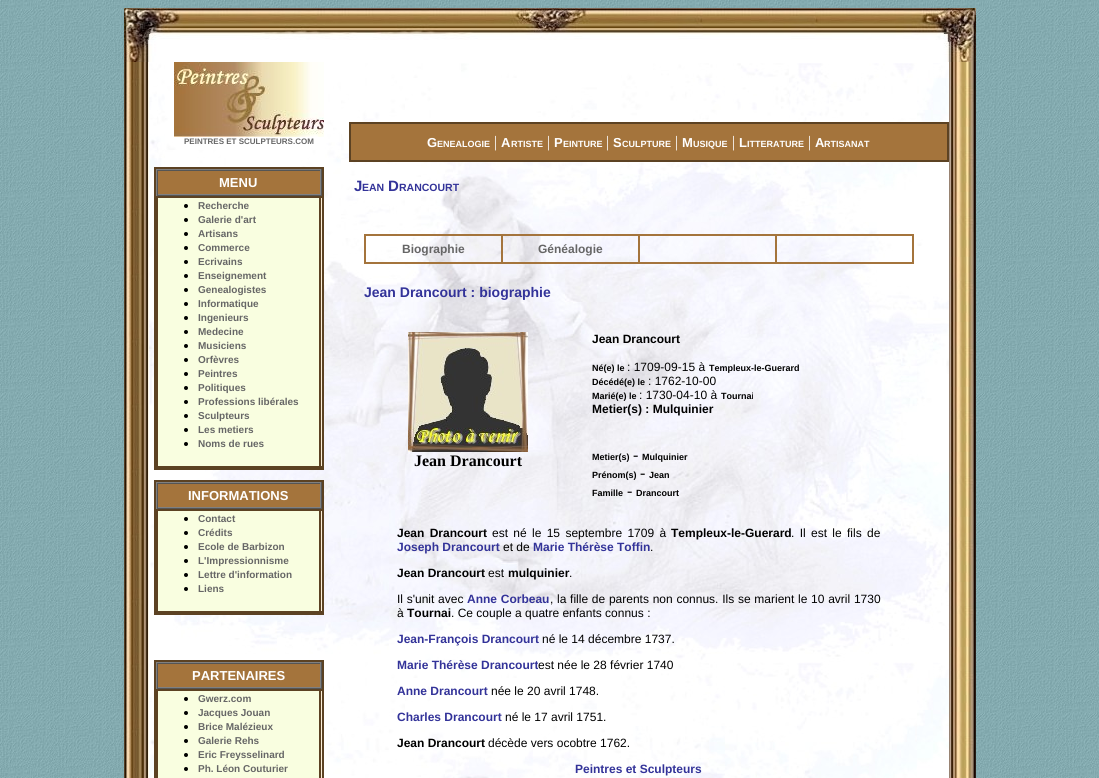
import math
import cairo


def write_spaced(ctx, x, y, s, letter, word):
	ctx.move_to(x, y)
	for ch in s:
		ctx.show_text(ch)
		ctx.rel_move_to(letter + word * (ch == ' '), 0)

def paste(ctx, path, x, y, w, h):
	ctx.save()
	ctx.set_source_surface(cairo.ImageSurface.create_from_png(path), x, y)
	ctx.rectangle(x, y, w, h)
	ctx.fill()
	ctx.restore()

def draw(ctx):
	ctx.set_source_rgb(1, 1, 1)
	ctx.paint()
	paste(ctx, 'media/1.png', 0, 0, 1099, 778)
	paste(ctx, 'media/2.png', 124, 8, 852, 54)
	paste(ctx, 'media/3.png', 124, 62, 25, 716)
	ctx.set_source_rgb(1, 1, 1)
	ctx.rectangle(149, 62, 800, 1)
	ctx.fill()
	paste(ctx, 'media/4.png', 149, 63, 800, 715)
	paste(ctx, 'media/5.png', 174, 62, 150, 75)
	ctx.select_font_face('Liberation Sans', cairo.FONT_SLANT_NORMAL, cairo.FONT_WEIGHT_BOLD)
	ctx.set_font_size(8)
	ctx.set_source_rgb(0.4, 0.4, 0.4)
	ctx.move_to(184, 144)
	ctx.show_text('PEINTRES ET SCULPTEURS.COM')
	ctx.set_source_rgb(0.643, 0.455, 0.235)
	ctx.rectangle(351, 124, 596, 36)
	ctx.fill()
	ctx.rectangle(349.5, 122.5, 599, 39)
	ctx.set_source_rgb(0.361, 0.259, 0.137)
	ctx.set_line_width(1)
	ctx.stroke()
	ctx.rectangle(350.5, 123.5, 597, 37)
	ctx.stroke()
	ctx.set_font_size(13)
	ctx.set_source_rgb(1, 1, 1)
	ctx.move_to(427, 147)
	ctx.show_text('G')
	ctx.set_font_size(9)
	ctx.move_to(437, 147)
	ctx.show_text('ENEALOGIE')
	ctx.select_font_face('Liberation Serif')
	ctx.set_font_size(16)
	ctx.move_to(494, 147)
	ctx.show_text('|')
	ctx.select_font_face('Liberation Sans', cairo.FONT_SLANT_NORMAL, cairo.FONT_WEIGHT_BOLD)
	ctx.set_font_size(13)
	ctx.move_to(501, 147)
	ctx.show_text('A')
	ctx.set_font_size(9)
	ctx.move_to(511, 147)
	ctx.show_text('RTISTE')
	ctx.select_font_face('Liberation Serif')
	ctx.set_font_size(16)
	ctx.move_to(547, 147)
	ctx.show_text('|')
	ctx.select_font_face('Liberation Sans', cairo.FONT_SLANT_NORMAL, cairo.FONT_WEIGHT_BOLD)
	ctx.set_font_size(13)
	ctx.move_to(554, 147)
	ctx.show_text('P')
	ctx.set_font_size(9)
	ctx.move_to(563, 147)
	ctx.show_text('EINTURE')
	ctx.select_font_face('Liberation Serif')
	ctx.set_font_size(16)
	ctx.move_to(606, 147)
	ctx.show_text('|')
	ctx.select_font_face('Liberation Sans', cairo.FONT_SLANT_NORMAL, cairo.FONT_WEIGHT_BOLD)
	ctx.set_font_size(13)
	ctx.move_to(613, 147)
	ctx.show_text('S')
	ctx.set_font_size(9)
	ctx.move_to(622, 147)
	ctx.show_text('CULPTURE')
	ctx.select_font_face('Liberation Serif')
	ctx.set_font_size(16)
	ctx.move_to(675, 147)
	ctx.show_text('|')
	ctx.select_font_face('Liberation Sans', cairo.FONT_SLANT_NORMAL, cairo.FONT_WEIGHT_BOLD)
	ctx.set_font_size(13)
	ctx.move_to(682, 147)
	ctx.show_text('M')
	ctx.set_font_size(9)
	ctx.move_to(693, 147)
	ctx.show_text('USIQUE')
	ctx.select_font_face('Liberation Serif')
	ctx.set_font_size(16)
	ctx.move_to(732, 147)
	ctx.show_text('|')
	ctx.select_font_face('Liberation Sans', cairo.FONT_SLANT_NORMAL, cairo.FONT_WEIGHT_BOLD)
	ctx.set_font_size(13)
	ctx.move_to(739, 147)
	ctx.show_text('L')
	ctx.set_font_size(9)
	ctx.move_to(747, 147)
	ctx.show_text('ITTERATURE')
	ctx.select_font_face('Liberation Serif')
	ctx.set_font_size(16)
	ctx.move_to(808, 147)
	ctx.show_text('|')
	ctx.select_font_face('Liberation Sans', cairo.FONT_SLANT_NORMAL, cairo.FONT_WEIGHT_BOLD)
	ctx.set_font_size(13)
	ctx.move_to(815, 147)
	ctx.show_text('A')
	ctx.set_font_size(9)
	ctx.move_to(824, 147)
	ctx.show_text('RTISANAT')
	ctx.rectangle(154.5, 167.5, 169, 302)
	ctx.set_source_rgb(0.361, 0.259, 0.137)
	ctx.stroke()
	ctx.rectangle(155.5, 168.5, 167, 28)
	ctx.stroke()
	ctx.set_source_rgb(0.502, 0.502, 0.502)
	ctx.rectangle(156, 169, 166, 1)
	ctx.fill()
	ctx.set_source_rgb(0.333, 0.333, 0.333)
	ctx.rectangle(321, 169, 1, 27)
	ctx.rectangle(156, 195, 166, 1)
	ctx.fill()
	ctx.set_source_rgb(0.502, 0.502, 0.502)
	ctx.rectangle(156, 169, 1, 27)
	ctx.fill()
	ctx.set_source_rgb(0.643, 0.455, 0.235)
	ctx.rectangle(158, 171, 162, 23)
	ctx.fill()
	ctx.set_source_rgb(0.333, 0.333, 0.333)
	ctx.rectangle(157, 170, 164, 1)
	ctx.fill()
	ctx.set_source_rgb(0.502, 0.502, 0.502)
	ctx.rectangle(320, 170, 1, 25)
	ctx.rectangle(157, 194, 164, 1)
	ctx.fill()
	ctx.set_source_rgb(0.333, 0.333, 0.333)
	ctx.rectangle(157, 170, 1, 25)
	ctx.fill()
	ctx.set_font_size(13)
	ctx.set_source_rgb(1, 1, 1)
	ctx.move_to(219, 187)
	ctx.show_text('MENU')
	ctx.set_source_rgb(0.361, 0.259, 0.137)
	ctx.rectangle(155, 197, 2, 270)
	ctx.fill()
	ctx.set_source_rgb(0.976, 0.996, 0.878)
	ctx.rectangle(157.5, 197.5, 162, 269)
	ctx.fill_preserve()
	ctx.set_source_rgb(0.361, 0.259, 0.137)
	ctx.stroke()
	ctx.set_source_rgb(0, 0, 0)
	ctx.arc(186, 206, 2, 0, 2 * math.pi)
	ctx.fill()
	ctx.set_font_size(10)
	ctx.set_source_rgb(0.4, 0.4, 0.4)
	ctx.move_to(198, 209)
	ctx.show_text('Recherche')
	ctx.set_source_rgb(0, 0, 0)
	ctx.new_path()
	ctx.arc(186, 220, 2, 0, 2 * math.pi)
	ctx.fill()
	ctx.set_source_rgb(0.4, 0.4, 0.4)
	ctx.move_to(198, 223)
	ctx.show_text('Galerie d\'art')
	ctx.set_source_rgb(0, 0, 0)
	ctx.new_path()
	ctx.arc(186, 234, 2, 0, 2 * math.pi)
	ctx.fill()
	ctx.set_source_rgb(0.4, 0.4, 0.4)
	ctx.move_to(198, 237)
	ctx.show_text('Artisans')
	ctx.set_source_rgb(0, 0, 0)
	ctx.new_path()
	ctx.arc(186, 248, 2, 0, 2 * math.pi)
	ctx.fill()
	ctx.set_source_rgb(0.4, 0.4, 0.4)
	ctx.move_to(198, 251)
	ctx.show_text('Commerce')
	ctx.set_source_rgb(0, 0, 0)
	ctx.new_path()
	ctx.arc(186, 262, 2, 0, 2 * math.pi)
	ctx.fill()
	ctx.set_source_rgb(0.4, 0.4, 0.4)
	ctx.move_to(198, 265)
	ctx.show_text('Ecrivains')
	ctx.set_source_rgb(0, 0, 0)
	ctx.new_path()
	ctx.arc(186, 276, 2, 0, 2 * math.pi)
	ctx.fill()
	ctx.set_source_rgb(0.4, 0.4, 0.4)
	ctx.move_to(198, 279)
	ctx.show_text('Enseignement')
	ctx.set_source_rgb(0, 0, 0)
	ctx.new_path()
	ctx.arc(186, 290, 2, 0, 2 * math.pi)
	ctx.fill()
	ctx.set_source_rgb(0.4, 0.4, 0.4)
	ctx.move_to(198, 293)
	ctx.show_text('Genealogistes')
	ctx.set_source_rgb(0, 0, 0)
	ctx.new_path()
	ctx.arc(186, 304, 2, 0, 2 * math.pi)
	ctx.fill()
	ctx.set_source_rgb(0.4, 0.4, 0.4)
	ctx.move_to(198, 307)
	ctx.show_text('Informatique')
	ctx.set_source_rgb(0, 0, 0)
	ctx.new_path()
	ctx.arc(186, 318, 2, 0, 2 * math.pi)
	ctx.fill()
	ctx.set_source_rgb(0.4, 0.4, 0.4)
	ctx.move_to(198, 321)
	ctx.show_text('Ingenieurs')
	ctx.set_source_rgb(0, 0, 0)
	ctx.new_path()
	ctx.arc(186, 332, 2, 0, 2 * math.pi)
	ctx.fill()
	ctx.set_source_rgb(0.4, 0.4, 0.4)
	ctx.move_to(198, 335)
	ctx.show_text('Medecine')
	ctx.set_source_rgb(0, 0, 0)
	ctx.new_path()
	ctx.arc(186, 346, 2, 0, 2 * math.pi)
	ctx.fill()
	ctx.set_source_rgb(0.4, 0.4, 0.4)
	ctx.move_to(198, 349)
	ctx.show_text('Musiciens')
	ctx.set_source_rgb(0, 0, 0)
	ctx.new_path()
	ctx.arc(186, 360, 2, 0, 2 * math.pi)
	ctx.fill()
	ctx.set_source_rgb(0.4, 0.4, 0.4)
	ctx.move_to(198, 363)
	ctx.show_text('Orfèvres')
	ctx.set_source_rgb(0, 0, 0)
	ctx.new_path()
	ctx.arc(186, 374, 2, 0, 2 * math.pi)
	ctx.fill()
	ctx.set_source_rgb(0.4, 0.4, 0.4)
	ctx.move_to(198, 377)
	ctx.show_text('Peintres')
	ctx.set_source_rgb(0, 0, 0)
	ctx.new_path()
	ctx.arc(186, 388, 2, 0, 2 * math.pi)
	ctx.fill()
	ctx.set_source_rgb(0.4, 0.4, 0.4)
	ctx.move_to(198, 391)
	ctx.show_text('Politiques')
	ctx.set_source_rgb(0, 0, 0)
	ctx.new_path()
	ctx.arc(186, 402, 2, 0, 2 * math.pi)
	ctx.fill()
	ctx.set_source_rgb(0.4, 0.4, 0.4)
	ctx.move_to(198, 405)
	ctx.show_text('Professions libérales')
	ctx.set_source_rgb(0, 0, 0)
	ctx.new_path()
	ctx.arc(186, 416, 2, 0, 2 * math.pi)
	ctx.fill()
	ctx.set_source_rgb(0.4, 0.4, 0.4)
	ctx.move_to(198, 419)
	ctx.show_text('Sculpteurs')
	ctx.set_source_rgb(0, 0, 0)
	ctx.new_path()
	ctx.arc(186, 430, 2, 0, 2 * math.pi)
	ctx.fill()
	ctx.set_source_rgb(0.4, 0.4, 0.4)
	ctx.move_to(198, 433)
	ctx.show_text('Les metiers')
	ctx.set_source_rgb(0, 0, 0)
	ctx.new_path()
	ctx.arc(186, 444, 2, 0, 2 * math.pi)
	ctx.fill()
	ctx.set_source_rgb(0.4, 0.4, 0.4)
	ctx.move_to(198, 447)
	ctx.show_text('Noms de rues')
	ctx.set_source_rgb(0.988, 0.941, 0.851)
	ctx.rectangle(320.5, 197.5, 2, 269)
	ctx.fill_preserve()
	ctx.set_source_rgb(0.361, 0.259, 0.137)
	ctx.stroke()
	ctx.rectangle(155, 467, 168, 2)
	ctx.fill()
	ctx.rectangle(154.5, 480.5, 169, 134)
	ctx.stroke()
	ctx.rectangle(155.5, 481.5, 167, 28)
	ctx.stroke()
	ctx.set_source_rgb(0.502, 0.502, 0.502)
	ctx.rectangle(156, 482, 166, 1)
	ctx.fill()
	ctx.set_source_rgb(0.333, 0.333, 0.333)
	ctx.rectangle(321, 482, 1, 27)
	ctx.rectangle(156, 508, 166, 1)
	ctx.fill()
	ctx.set_source_rgb(0.502, 0.502, 0.502)
	ctx.rectangle(156, 482, 1, 27)
	ctx.fill()
	ctx.set_source_rgb(0.643, 0.455, 0.235)
	ctx.rectangle(158, 484, 162, 23)
	ctx.fill()
	ctx.set_source_rgb(0.333, 0.333, 0.333)
	ctx.rectangle(157, 483, 164, 1)
	ctx.fill()
	ctx.set_source_rgb(0.502, 0.502, 0.502)
	ctx.rectangle(320, 483, 1, 25)
	ctx.rectangle(157, 507, 164, 1)
	ctx.fill()
	ctx.set_source_rgb(0.333, 0.333, 0.333)
	ctx.rectangle(157, 483, 1, 25)
	ctx.fill()
	ctx.set_font_size(13)
	ctx.set_source_rgb(1, 1, 1)
	ctx.move_to(188, 500)
	ctx.show_text('INFORMATIONS')
	ctx.set_source_rgb(0.361, 0.259, 0.137)
	ctx.rectangle(155, 510, 2, 102)
	ctx.fill()
	ctx.set_source_rgb(0.976, 0.996, 0.878)
	ctx.rectangle(157.5, 510.5, 162, 101)
	ctx.fill_preserve()
	ctx.set_source_rgb(0.361, 0.259, 0.137)
	ctx.stroke()
	ctx.set_source_rgb(0, 0, 0)
	ctx.arc(186, 519, 2, 0, 2 * math.pi)
	ctx.fill()
	ctx.set_font_size(10)
	ctx.set_source_rgb(0.4, 0.4, 0.4)
	ctx.move_to(198, 522)
	ctx.show_text('Contact')
	ctx.set_source_rgb(0, 0, 0)
	ctx.new_path()
	ctx.arc(186, 533, 2, 0, 2 * math.pi)
	ctx.fill()
	ctx.set_source_rgb(0.4, 0.4, 0.4)
	ctx.move_to(198, 536)
	ctx.show_text('Crédits')
	ctx.set_source_rgb(0, 0, 0)
	ctx.new_path()
	ctx.arc(186, 547, 2, 0, 2 * math.pi)
	ctx.fill()
	ctx.set_source_rgb(0.4, 0.4, 0.4)
	ctx.move_to(198, 550)
	ctx.show_text('Ecole de Barbizon')
	ctx.set_source_rgb(0, 0, 0)
	ctx.new_path()
	ctx.arc(186, 561, 2, 0, 2 * math.pi)
	ctx.fill()
	ctx.set_source_rgb(0.4, 0.4, 0.4)
	ctx.move_to(198, 564)
	ctx.show_text('L\'Impressionnisme')
	ctx.set_source_rgb(0, 0, 0)
	ctx.new_path()
	ctx.arc(186, 575, 2, 0, 2 * math.pi)
	ctx.fill()
	ctx.set_source_rgb(0.4, 0.4, 0.4)
	ctx.move_to(198, 578)
	ctx.show_text('Lettre d\'information')
	ctx.set_source_rgb(0, 0, 0)
	ctx.new_path()
	ctx.arc(186, 589, 2, 0, 2 * math.pi)
	ctx.fill()
	ctx.set_source_rgb(0.4, 0.4, 0.4)
	ctx.move_to(198, 592)
	ctx.show_text('Liens')
	ctx.set_source_rgb(0.988, 0.941, 0.851)
	ctx.rectangle(320.5, 510.5, 2, 101)
	ctx.fill_preserve()
	ctx.set_source_rgb(0.361, 0.259, 0.137)
	ctx.stroke()
	ctx.rectangle(155, 612, 168, 2)
	ctx.fill()
	ctx.rectangle(154.5, 660.5, 169, 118)
	ctx.stroke()
	ctx.rectangle(155.5, 661.5, 167, 28)
	ctx.stroke()
	ctx.set_source_rgb(0.502, 0.502, 0.502)
	ctx.rectangle(156, 662, 166, 1)
	ctx.fill()
	ctx.set_source_rgb(0.333, 0.333, 0.333)
	ctx.rectangle(321, 662, 1, 27)
	ctx.rectangle(156, 688, 166, 1)
	ctx.fill()
	ctx.set_source_rgb(0.502, 0.502, 0.502)
	ctx.rectangle(156, 662, 1, 27)
	ctx.fill()
	ctx.set_source_rgb(0.643, 0.455, 0.235)
	ctx.rectangle(158, 664, 162, 23)
	ctx.fill()
	ctx.set_source_rgb(0.333, 0.333, 0.333)
	ctx.rectangle(157, 663, 164, 1)
	ctx.fill()
	ctx.set_source_rgb(0.502, 0.502, 0.502)
	ctx.rectangle(320, 663, 1, 25)
	ctx.rectangle(157, 687, 164, 1)
	ctx.fill()
	ctx.set_source_rgb(0.333, 0.333, 0.333)
	ctx.rectangle(157, 663, 1, 25)
	ctx.fill()
	ctx.set_font_size(13)
	ctx.set_source_rgb(1, 1, 1)
	ctx.move_to(192, 680)
	ctx.show_text('PARTENAIRES')
	ctx.set_source_rgb(0.361, 0.259, 0.137)
	ctx.rectangle(155, 690, 2, 88)
	ctx.fill()
	ctx.set_source_rgb(0.976, 0.996, 0.878)
	ctx.rectangle(157.5, 690.5, 162, 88)
	ctx.fill_preserve()
	ctx.set_source_rgb(0.361, 0.259, 0.137)
	ctx.stroke()
	ctx.set_source_rgb(0, 0, 0)
	ctx.arc(186, 699, 2, 0, 2 * math.pi)
	ctx.fill()
	ctx.set_font_size(10)
	ctx.set_source_rgb(0.4, 0.4, 0.4)
	ctx.move_to(198, 702)
	ctx.show_text('Gwerz.com')
	ctx.set_source_rgb(0, 0, 0)
	ctx.new_path()
	ctx.arc(186, 713, 2, 0, 2 * math.pi)
	ctx.fill()
	ctx.set_source_rgb(0.4, 0.4, 0.4)
	ctx.move_to(198, 716)
	ctx.show_text('Jacques Jouan')
	ctx.set_source_rgb(0, 0, 0)
	ctx.new_path()
	ctx.arc(186, 727, 2, 0, 2 * math.pi)
	ctx.fill()
	ctx.set_source_rgb(0.4, 0.4, 0.4)
	ctx.move_to(198, 730)
	ctx.show_text('Brice Malézieux')
	ctx.set_source_rgb(0, 0, 0)
	ctx.new_path()
	ctx.arc(186, 741, 2, 0, 2 * math.pi)
	ctx.fill()
	ctx.set_source_rgb(0.4, 0.4, 0.4)
	ctx.move_to(198, 744)
	ctx.show_text('Galerie Rehs')
	ctx.set_source_rgb(0, 0, 0)
	ctx.new_path()
	ctx.arc(186, 755, 2, 0, 2 * math.pi)
	ctx.fill()
	ctx.set_source_rgb(0.4, 0.4, 0.4)
	ctx.move_to(198, 758)
	ctx.show_text('Eric Freysselinard')
	ctx.set_source_rgb(0, 0, 0)
	ctx.new_path()
	ctx.arc(186, 769, 2, 0, 2 * math.pi)
	ctx.fill()
	ctx.set_source_rgb(0.4, 0.4, 0.4)
	ctx.move_to(198, 772)
	ctx.show_text('Ph. Léon Couturier')
	ctx.set_source_rgb(0.988, 0.941, 0.851)
	ctx.rectangle(320.5, 690.5, 2, 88)
	ctx.fill_preserve()
	ctx.set_source_rgb(0.361, 0.259, 0.137)
	ctx.stroke()
	ctx.set_font_size(15)
	ctx.set_source_rgb(0.2, 0.2, 0.6)
	ctx.move_to(354, 191)
	ctx.show_text('J')
	ctx.set_font_size(10.5)
	ctx.move_to(362, 191)
	ctx.show_text('EAN')
	ctx.set_font_size(15)
	ctx.move_to(388, 191)
	ctx.show_text('D')
	ctx.set_font_size(10.5)
	ctx.move_to(399, 191)
	ctx.show_text('RANCOURT')
	ctx.rectangle(364.5, 234.5, 549, 29)
	ctx.set_source_rgb(0.643, 0.455, 0.235)
	ctx.stroke()
	ctx.rectangle(365.5, 235.5, 136, 27)
	ctx.stroke()
	ctx.set_font_size(12)
	ctx.set_source_rgb(0.4, 0.4, 0.4)
	ctx.move_to(402, 253)
	ctx.show_text('Biographie')
	ctx.rectangle(502.5, 235.5, 136, 27)
	ctx.set_source_rgb(0.643, 0.455, 0.235)
	ctx.stroke()
	ctx.set_source_rgb(0.4, 0.4, 0.4)
	ctx.move_to(538, 253)
	ctx.show_text('Généalogie')
	ctx.rectangle(639.5, 235.5, 136, 27)
	ctx.set_source_rgb(0.643, 0.455, 0.235)
	ctx.stroke()
	ctx.rectangle(776.5, 235.5, 136, 27)
	ctx.stroke()
	ctx.set_font_size(14)
	ctx.set_source_rgb(0.2, 0.2, 0.6)
	ctx.move_to(364, 297)
	ctx.show_text('Jean Drancourt : biographie')
	paste(ctx, 'media/6.png', 408, 332, 120, 120)
	ctx.select_font_face('Liberation Serif', cairo.FONT_SLANT_NORMAL, cairo.FONT_WEIGHT_BOLD)
	ctx.set_font_size(16)
	ctx.set_source_rgb(0, 0, 0)
	ctx.move_to(414, 466)
	ctx.show_text('Jean Drancourt')
	ctx.select_font_face('Liberation Sans', cairo.FONT_SLANT_NORMAL, cairo.FONT_WEIGHT_BOLD)
	ctx.set_font_size(12)
	ctx.move_to(592, 343)
	ctx.show_text('Jean Drancourt')
	ctx.set_font_size(9)
	ctx.move_to(592, 371)
	ctx.show_text('Né(e) le')
	ctx.select_font_face('Liberation Sans')
	ctx.set_font_size(12)
	ctx.move_to(627, 371)
	ctx.show_text(': 1709-09-15 à')
	ctx.select_font_face('Liberation Sans', cairo.FONT_SLANT_NORMAL, cairo.FONT_WEIGHT_BOLD)
	ctx.set_font_size(9)
	ctx.move_to(709, 371)
	ctx.show_text('Templeux-le-Guerard')
	ctx.move_to(592, 385)
	ctx.show_text('Décédé(e) le')
	ctx.select_font_face('Liberation Sans')
	ctx.set_font_size(12)
	ctx.move_to(648, 385)
	ctx.show_text(': 1762-10-00')
	ctx.select_font_face('Liberation Sans', cairo.FONT_SLANT_NORMAL, cairo.FONT_WEIGHT_BOLD)
	ctx.set_font_size(9)
	ctx.move_to(592, 399)
	ctx.show_text('Marié(e) le')
	ctx.select_font_face('Liberation Sans')
	ctx.set_font_size(12)
	ctx.move_to(639, 399)
	ctx.show_text(': 1730-04-10 à')
	ctx.select_font_face('Liberation Sans', cairo.FONT_SLANT_NORMAL, cairo.FONT_WEIGHT_BOLD)
	ctx.set_font_size(9)
	ctx.move_to(721, 399)
	ctx.show_text('Tournai')
	ctx.set_font_size(12)
	ctx.move_to(592, 413)
	ctx.show_text('Metier(s) : Mulquinier')
	ctx.set_font_size(9)
	ctx.move_to(592, 460)
	ctx.show_text('Metier(s)')
	ctx.select_font_face('Liberation Serif')
	ctx.set_font_size(16)
	ctx.move_to(633, 460)
	ctx.show_text('-')
	ctx.select_font_face('Liberation Sans', cairo.FONT_SLANT_NORMAL, cairo.FONT_WEIGHT_BOLD)
	ctx.set_font_size(9)
	ctx.move_to(642, 460)
	ctx.show_text('Mulquinier')
	ctx.move_to(592, 478)
	ctx.show_text('Prénom(s)')
	ctx.select_font_face('Liberation Serif')
	ctx.set_font_size(16)
	ctx.move_to(640, 478)
	ctx.show_text('-')
	ctx.select_font_face('Liberation Sans', cairo.FONT_SLANT_NORMAL, cairo.FONT_WEIGHT_BOLD)
	ctx.set_font_size(9)
	ctx.move_to(649, 478)
	ctx.show_text('Jean')
	ctx.move_to(592, 496)
	ctx.show_text('Famille')
	ctx.select_font_face('Liberation Serif')
	ctx.set_font_size(16)
	ctx.move_to(627, 496)
	ctx.show_text('-')
	ctx.select_font_face('Liberation Sans', cairo.FONT_SLANT_NORMAL, cairo.FONT_WEIGHT_BOLD)
	ctx.set_font_size(9)
	ctx.move_to(636, 496)
	ctx.show_text('Drancourt')
	ctx.set_font_size(12)
	write_spaced(ctx, 397, 537, 'Jean Drancourt', 0, 2)
	ctx.select_font_face('Liberation Sans')
	write_spaced(ctx, 492, 537, 'est né le 15 septembre 1709 à', 0, 2)
	ctx.select_font_face('Liberation Sans', cairo.FONT_SLANT_NORMAL, cairo.FONT_WEIGHT_BOLD)
	ctx.move_to(671, 537)
	ctx.show_text('Templeux-le-Guerard')
	ctx.select_font_face('Liberation Sans')
	write_spaced(ctx, 791, 537, '. Il est le fils de', 0, 2)
	ctx.select_font_face('Liberation Sans', cairo.FONT_SLANT_NORMAL, cairo.FONT_WEIGHT_BOLD)
	ctx.set_source_rgb(0.2, 0.2, 0.6)
	ctx.move_to(397, 551)
	ctx.show_text('Joseph Drancourt')
	ctx.select_font_face('Liberation Sans')
	ctx.set_source_rgb(0, 0, 0)
	ctx.move_to(503, 551)
	ctx.show_text('et de')
	ctx.select_font_face('Liberation Sans', cairo.FONT_SLANT_NORMAL, cairo.FONT_WEIGHT_BOLD)
	ctx.set_source_rgb(0.2, 0.2, 0.6)
	ctx.move_to(533, 551)
	ctx.show_text('Marie Thérèse Toffin')
	ctx.select_font_face('Liberation Sans')
	ctx.set_source_rgb(0, 0, 0)
	ctx.move_to(650, 551)
	ctx.show_text('.')
	ctx.select_font_face('Liberation Sans', cairo.FONT_SLANT_NORMAL, cairo.FONT_WEIGHT_BOLD)
	ctx.move_to(397, 577)
	ctx.show_text('Jean Drancourt')
	ctx.select_font_face('Liberation Sans')
	ctx.move_to(488, 577)
	ctx.show_text('est')
	ctx.select_font_face('Liberation Sans', cairo.FONT_SLANT_NORMAL, cairo.FONT_WEIGHT_BOLD)
	ctx.move_to(508, 577)
	ctx.show_text('mulquinier')
	ctx.select_font_face('Liberation Sans')
	ctx.move_to(569, 577)
	ctx.show_text('.')
	write_spaced(ctx, 397, 603, 'Il s\'unit avec', 0, 0.4)
	ctx.select_font_face('Liberation Sans', cairo.FONT_SLANT_NORMAL, cairo.FONT_WEIGHT_BOLD)
	ctx.set_source_rgb(0.2, 0.2, 0.6)
	write_spaced(ctx, 467, 603, 'Anne Corbeau', 0, 0.4)
	ctx.select_font_face('Liberation Sans')
	ctx.set_source_rgb(0, 0, 0)
	ctx.move_to(550, 603)
	ctx.show_text(',')
	write_spaced(ctx, 557, 603, 'la fille de parents non connus. Ils se marient le 10 avril 1730', 0, 0.4)
	ctx.move_to(397, 617)
	ctx.show_text('à')
	ctx.select_font_face('Liberation Sans', cairo.FONT_SLANT_NORMAL, cairo.FONT_WEIGHT_BOLD)
	ctx.move_to(407, 617)
	ctx.show_text('Tournai')
	ctx.select_font_face('Liberation Sans')
	ctx.move_to(451, 617)
	ctx.show_text('. Ce couple a quatre enfants connus :')
	ctx.select_font_face('Liberation Sans', cairo.FONT_SLANT_NORMAL, cairo.FONT_WEIGHT_BOLD)
	ctx.set_source_rgb(0.2, 0.2, 0.6)
	ctx.move_to(397, 643)
	ctx.show_text('Jean-François Drancourt')
	ctx.select_font_face('Liberation Sans')
	ctx.set_source_rgb(0, 0, 0)
	ctx.move_to(542, 643)
	ctx.show_text('né le 14 décembre 1737.')
	ctx.select_font_face('Liberation Sans', cairo.FONT_SLANT_NORMAL, cairo.FONT_WEIGHT_BOLD)
	ctx.set_source_rgb(0.2, 0.2, 0.6)
	ctx.move_to(397, 669)
	ctx.show_text('Marie Thérèse Drancourt')
	ctx.select_font_face('Liberation Sans')
	ctx.set_source_rgb(0, 0, 0)
	ctx.move_to(538, 669)
	ctx.show_text('est née le 28 février 1740')
	ctx.select_font_face('Liberation Sans', cairo.FONT_SLANT_NORMAL, cairo.FONT_WEIGHT_BOLD)
	ctx.set_source_rgb(0.2, 0.2, 0.6)
	ctx.move_to(397, 695)
	ctx.show_text('Anne Drancourt')
	ctx.select_font_face('Liberation Sans')
	ctx.set_source_rgb(0, 0, 0)
	ctx.move_to(491, 695)
	ctx.show_text('née le 20 avril 1748.')
	ctx.select_font_face('Liberation Sans', cairo.FONT_SLANT_NORMAL, cairo.FONT_WEIGHT_BOLD)
	ctx.set_source_rgb(0.2, 0.2, 0.6)
	ctx.move_to(397, 721)
	ctx.show_text('Charles Drancourt')
	ctx.select_font_face('Liberation Sans')
	ctx.set_source_rgb(0, 0, 0)
	ctx.move_to(505, 721)
	ctx.show_text('né le 17 avril 1751.')
	ctx.select_font_face('Liberation Sans', cairo.FONT_SLANT_NORMAL, cairo.FONT_WEIGHT_BOLD)
	ctx.move_to(397, 747)
	ctx.show_text('Jean Drancourt')
	ctx.select_font_face('Liberation Sans')
	ctx.move_to(488, 747)
	ctx.show_text('décède vers ocobtre 1762.')
	ctx.select_font_face('Liberation Sans', cairo.FONT_SLANT_NORMAL, cairo.FONT_WEIGHT_BOLD)
	ctx.set_source_rgb(0.2, 0.2, 0.6)
	ctx.move_to(575, 773)
	ctx.show_text('Peintres et Sculpteurs')
	paste(ctx, 'media/7.png', 949, 62, 27, 716)


surface = cairo.ImageSurface(cairo.FORMAT_RGB24, 1099, 778)
ctx = cairo.Context(surface)
options = cairo.FontOptions()
options.set_hint_metrics(cairo.HINT_METRICS_OFF)
options.set_hint_style(cairo.HINT_STYLE_NONE)
ctx.set_font_options(options)
ctx.set_miter_limit(4)
draw(ctx)
surface.write_to_png('image.png')
